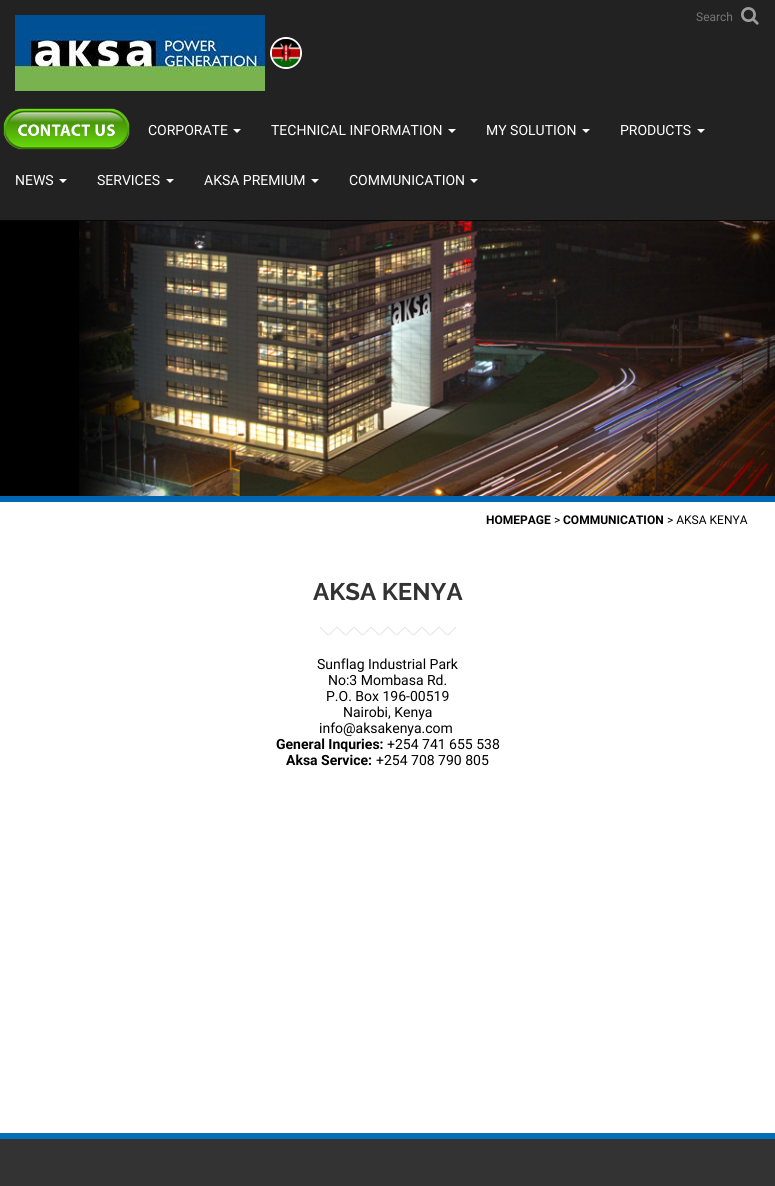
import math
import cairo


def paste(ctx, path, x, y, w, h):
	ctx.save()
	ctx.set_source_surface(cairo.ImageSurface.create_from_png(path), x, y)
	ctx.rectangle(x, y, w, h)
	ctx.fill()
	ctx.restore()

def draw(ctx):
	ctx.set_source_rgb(1, 1, 1)
	ctx.paint()
	ctx.set_source_rgb(0.133, 0.133, 0.133)
	ctx.rectangle(0, 0, 775, 220)
	ctx.fill()
	ctx.set_source_rgb(0.031, 0.031, 0.031)
	ctx.rectangle(0, 220, 775, 1)
	ctx.fill()
	ctx.select_font_face('Roboto')
	ctx.set_font_size(12)
	ctx.set_source_rgb(0.459, 0.459, 0.459)
	ctx.move_to(696, 21)
	ctx.show_text('Search')
	paste(ctx, 'media/1.png', 741, 7, 18, 18)
	ctx.arc(286, 53, 15, 0, 2 * math.pi)
	ctx.set_source_rgb(1, 1, 1)
	ctx.stroke()
	paste(ctx, 'media/2.png', 272, 39, 28, 28)
	paste(ctx, 'media/3.png', 15, 15, 250, 76)
	paste(ctx, 'media/4.png', 3, 108, 127, 42)
	ctx.set_font_size(14)
	ctx.move_to(148, 135)
	ctx.show_text('CORPORATE')
	ctx.new_path()
	ctx.move_to(233, 129)
	ctx.line_to(241, 129)
	ctx.line_to(237, 133)
	ctx.close_path()
	ctx.fill()
	ctx.move_to(271, 135)
	ctx.show_text('TECHNICAL INFORMATION')
	ctx.new_path()
	ctx.move_to(448, 129)
	ctx.line_to(456, 129)
	ctx.line_to(452, 133)
	ctx.close_path()
	ctx.fill()
	ctx.move_to(486, 135)
	ctx.show_text('MY SOLUTION')
	ctx.new_path()
	ctx.move_to(582, 129)
	ctx.line_to(590, 129)
	ctx.line_to(586, 133)
	ctx.close_path()
	ctx.fill()
	ctx.move_to(620, 135)
	ctx.show_text('PRODUCTS')
	ctx.new_path()
	ctx.move_to(697, 129)
	ctx.line_to(705, 129)
	ctx.line_to(701, 133)
	ctx.close_path()
	ctx.fill()
	ctx.move_to(15, 185)
	ctx.show_text('NEWS')
	ctx.new_path()
	ctx.move_to(59, 179)
	ctx.line_to(67, 179)
	ctx.line_to(63, 183)
	ctx.close_path()
	ctx.fill()
	ctx.move_to(97, 185)
	ctx.show_text('SERVICES')
	ctx.new_path()
	ctx.move_to(166, 179)
	ctx.line_to(174, 179)
	ctx.line_to(170, 183)
	ctx.close_path()
	ctx.fill()
	ctx.move_to(204, 185)
	ctx.show_text('AKSA PREMIUM')
	ctx.new_path()
	ctx.move_to(311, 179)
	ctx.line_to(319, 179)
	ctx.line_to(315, 183)
	ctx.close_path()
	ctx.fill()
	ctx.move_to(349, 185)
	ctx.show_text('COMMUNICATION')
	ctx.new_path()
	ctx.move_to(470, 179)
	ctx.line_to(478, 179)
	ctx.line_to(474, 183)
	ctx.close_path()
	ctx.fill()
	paste(ctx, 'media/5.png', 0, 221, 775, 275)
	ctx.set_source_rgb(0, 0.404, 0.698)
	ctx.rectangle(0, 496, 775, 6)
	ctx.fill()
	ctx.select_font_face('Roboto', cairo.FONT_SLANT_NORMAL, cairo.FONT_WEIGHT_BOLD)
	ctx.set_font_size(12)
	ctx.set_source_rgb(0, 0, 0)
	ctx.move_to(486, 524)
	ctx.show_text('HOMEPAGE')
	ctx.select_font_face('Roboto')
	ctx.move_to(554, 524)
	ctx.show_text('>')
	ctx.select_font_face('Roboto', cairo.FONT_SLANT_NORMAL, cairo.FONT_WEIGHT_BOLD)
	ctx.move_to(563, 524)
	ctx.show_text('COMMUNICATION')
	ctx.select_font_face('Roboto')
	ctx.move_to(667, 524)
	ctx.show_text('> AKSA KENYA')
	ctx.select_font_face('Raleway', cairo.FONT_SLANT_NORMAL, cairo.FONT_WEIGHT_BOLD)
	ctx.set_font_size(24)
	ctx.set_source_rgb(0.2, 0.2, 0.2)
	ctx.move_to(313, 600)
	ctx.show_text('AKSA KENYA')
	paste(ctx, 'media/6.png', 320, 626, 136, 10)
	ctx.select_font_face('Roboto')
	ctx.set_font_size(14)
	ctx.set_source_rgb(0, 0, 0)
	for x, y, s in [
		(317, 669, 'Sunflag Industrial Park'),
		(328, 685, 'No:3 Mombasa Rd.'),
		(326, 701, 'P.O. Box 196-00519'),
		(343, 717, 'Nairobi, Kenya'),
		(319, 733, 'info@aksakenya.com'),
	]:
		ctx.move_to(x, y)
		ctx.show_text(s)
	ctx.select_font_face('Roboto', cairo.FONT_SLANT_NORMAL, cairo.FONT_WEIGHT_BOLD)
	ctx.move_to(276, 749)
	ctx.show_text('General Inquries:')
	ctx.select_font_face('Roboto')
	ctx.move_to(387, 749)
	ctx.show_text('+254 741 655 538')
	ctx.select_font_face('Roboto', cairo.FONT_SLANT_NORMAL, cairo.FONT_WEIGHT_BOLD)
	ctx.move_to(286, 765)
	ctx.show_text('Aksa Service:')
	ctx.select_font_face('Roboto')
	ctx.move_to(376, 765)
	ctx.show_text('+254 708 790 805')
	ctx.set_source_rgb(0, 0.427, 0.718)
	ctx.rectangle(0, 1133, 775, 6)
	ctx.fill()
	ctx.set_source_rgb(0.2, 0.2, 0.2)
	ctx.rectangle(0, 1139, 775, 47)
	ctx.fill()


surface = cairo.ImageSurface(cairo.FORMAT_RGB24, 775, 1186)
ctx = cairo.Context(surface)
options = cairo.FontOptions()
options.set_hint_metrics(cairo.HINT_METRICS_OFF)
options.set_hint_style(cairo.HINT_STYLE_NONE)
ctx.set_font_options(options)
ctx.set_miter_limit(4)
draw(ctx)
surface.write_to_png('image.png')
